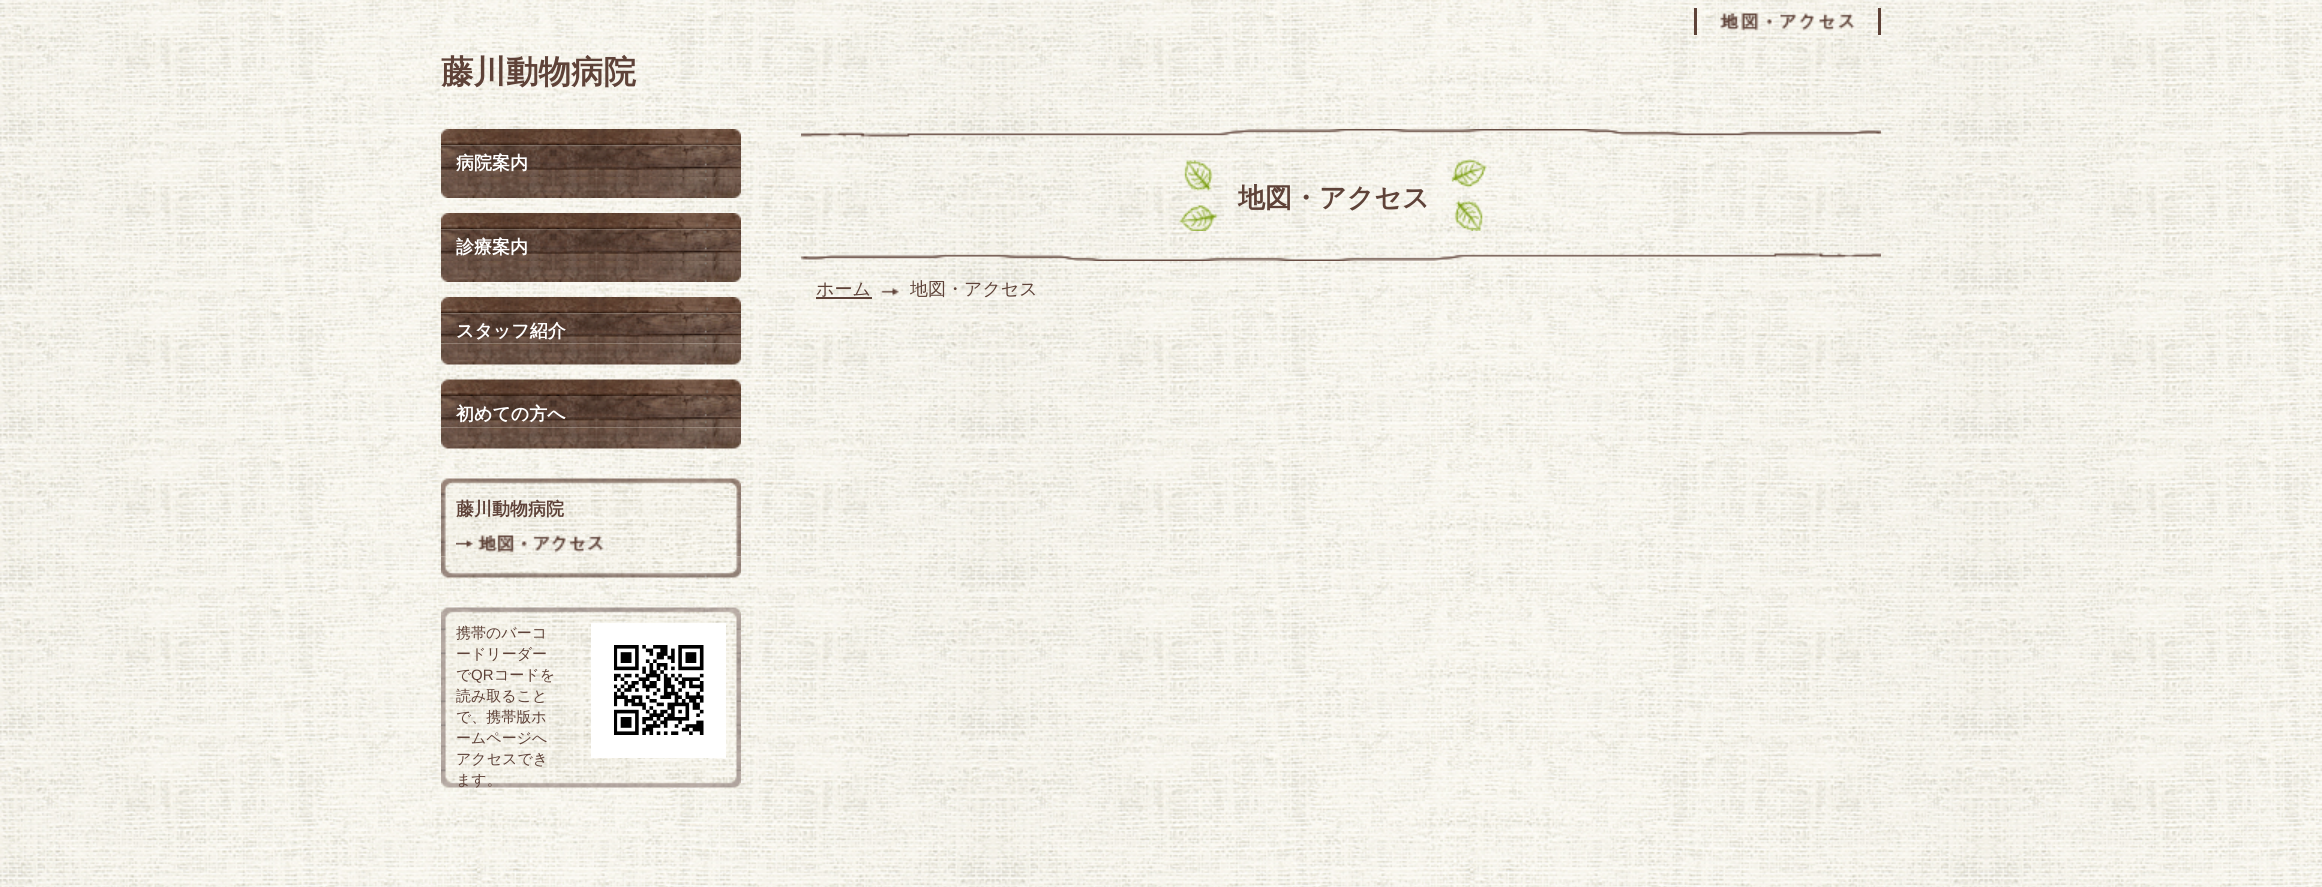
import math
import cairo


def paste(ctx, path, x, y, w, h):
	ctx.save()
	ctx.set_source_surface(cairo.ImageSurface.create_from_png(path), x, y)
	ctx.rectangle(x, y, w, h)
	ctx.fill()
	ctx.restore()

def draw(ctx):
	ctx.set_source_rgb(1, 1, 1)
	ctx.paint()
	paste(ctx, 'media/1.png', 0, 0, 2322, 887)
	ctx.set_source_rgb(0.369, 0.259, 0.22)
	ctx.rectangle(1878, 8, 3, 27)
	ctx.fill()
	ctx.rectangle(1694, 8, 3, 27)
	ctx.fill()
	paste(ctx, 'media/2.png', 1720, 12, 135, 19)
	ctx.select_font_face('WenQuanYi Zen Hei', cairo.FONT_SLANT_NORMAL, cairo.FONT_WEIGHT_BOLD)
	ctx.set_font_size(32.5)
	ctx.move_to(441, 83)
	ctx.show_text('藤川動物病院')
	paste(ctx, 'media/3.png', 441, 129, 300, 17)
	paste(ctx, 'media/4.png', 441, 145, 300, 32)
	ctx.set_font_size(18)
	ctx.set_source_rgb(1, 1, 1)
	ctx.move_to(456, 169)
	ctx.show_text('病院案内')
	paste(ctx, 'media/5.png', 441, 177, 300, 21)
	paste(ctx, 'media/6.png', 441, 213, 300, 17)
	paste(ctx, 'media/7.png', 441, 229, 300, 32)
	ctx.move_to(456, 253)
	ctx.show_text('診療案内')
	paste(ctx, 'media/8.png', 441, 261, 300, 21)
	paste(ctx, 'media/9.png', 441, 297, 300, 17)
	paste(ctx, 'media/10.png', 441, 313, 300, 31)
	ctx.move_to(456, 337)
	ctx.show_text('スタッフ紹介')
	paste(ctx, 'media/11.png', 441, 343, 300, 22)
	paste(ctx, 'media/12.png', 441, 379, 300, 17)
	paste(ctx, 'media/13.png', 441, 396, 300, 32)
	ctx.move_to(456, 420)
	ctx.show_text('初めての方へ')
	paste(ctx, 'media/14.png', 441, 427, 300, 22)
	paste(ctx, 'media/15.png', 441, 478, 300, 17)
	paste(ctx, 'media/16.png', 441, 495, 300, 62)
	ctx.set_source_rgb(0.369, 0.259, 0.22)
	ctx.move_to(456, 515)
	ctx.show_text('藤川動物病院')
	paste(ctx, 'media/17.png', 456, 534, 155, 20)
	paste(ctx, 'media/18.png', 441, 556, 300, 22)
	paste(ctx, 'media/19.png', 441, 607, 300, 181)
	ctx.select_font_face('WenQuanYi Zen Hei Medium')
	ctx.set_font_size(15)
	for x, y, s in [
		(456, 638, '携帯のバーコ'),
		(456, 659, 'ードリーダー'),
		(456, 680, 'で'),
	]:
		ctx.move_to(x, y)
		ctx.show_text(s)
	ctx.select_font_face('Liberation Sans')
	ctx.move_to(471, 680)
	ctx.show_text('QR')
	ctx.select_font_face('WenQuanYi Zen Hei Medium')
	for x, y, s in [
		(494, 680, 'コードを'),
		(456, 701, '読み取ること'),
		(456, 722, 'で、携帯版ホ'),
		(456, 743, 'ームページへ'),
		(456, 764, 'アクセスでき'),
		(456, 785, 'ます。'),
	]:
		ctx.move_to(x, y)
		ctx.show_text(s)
	ctx.set_source_rgb(1, 1, 1)
	ctx.rectangle(591, 623, 135, 135)
	ctx.fill()
	paste(ctx, 'media/20.png', 614, 645, 90, 90)
	paste(ctx, 'media/21.png', 801, 129, 1080, 132)
	paste(ctx, 'media/22.png', 1178, 159, 312, 72)
	ctx.select_font_face('WenQuanYi Zen Hei', cairo.FONT_SLANT_NORMAL, cairo.FONT_WEIGHT_BOLD)
	ctx.set_font_size(27)
	ctx.set_source_rgb(0.369, 0.259, 0.22)
	ctx.move_to(1238, 207)
	ctx.show_text('地図・アクセス')
	ctx.select_font_face('WenQuanYi Zen Hei Medium')
	ctx.set_font_size(18)
	ctx.move_to(816, 295)
	ctx.show_text('ホーム')
	ctx.rectangle(816, 297, 56, 2)
	ctx.fill()
	paste(ctx, 'media/23.png', 880, 288, 19, 8)
	ctx.move_to(910, 295)
	ctx.show_text('地図・アクセス')


surface = cairo.ImageSurface(cairo.FORMAT_RGB24, 2322, 887)
ctx = cairo.Context(surface)
options = cairo.FontOptions()
options.set_hint_metrics(cairo.HINT_METRICS_OFF)
options.set_hint_style(cairo.HINT_STYLE_NONE)
ctx.set_font_options(options)
ctx.set_miter_limit(4)
draw(ctx)
surface.write_to_png('image.png')
